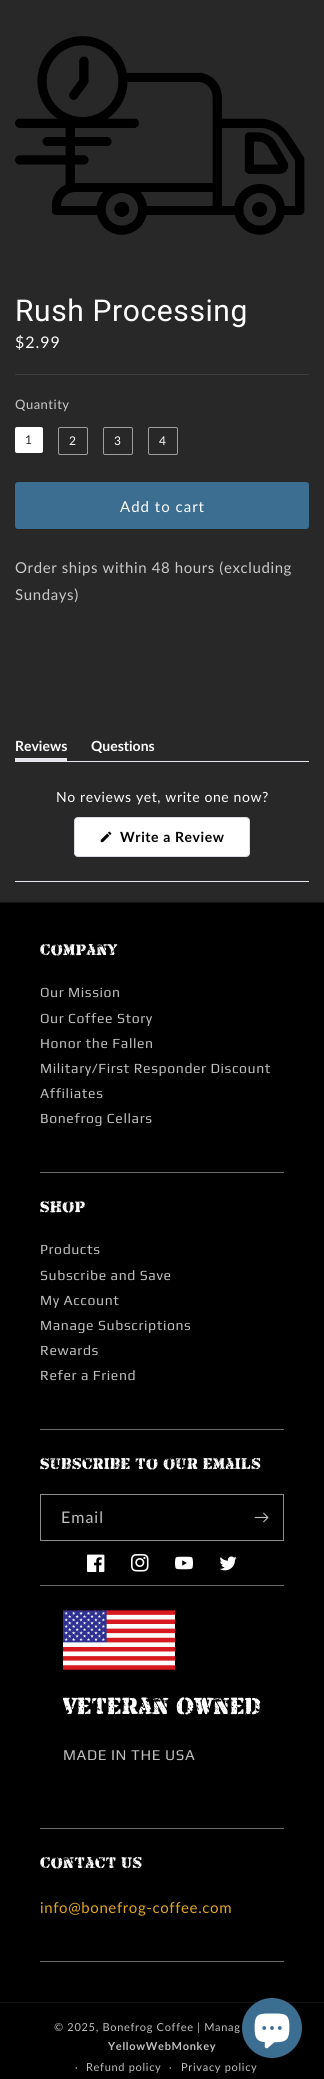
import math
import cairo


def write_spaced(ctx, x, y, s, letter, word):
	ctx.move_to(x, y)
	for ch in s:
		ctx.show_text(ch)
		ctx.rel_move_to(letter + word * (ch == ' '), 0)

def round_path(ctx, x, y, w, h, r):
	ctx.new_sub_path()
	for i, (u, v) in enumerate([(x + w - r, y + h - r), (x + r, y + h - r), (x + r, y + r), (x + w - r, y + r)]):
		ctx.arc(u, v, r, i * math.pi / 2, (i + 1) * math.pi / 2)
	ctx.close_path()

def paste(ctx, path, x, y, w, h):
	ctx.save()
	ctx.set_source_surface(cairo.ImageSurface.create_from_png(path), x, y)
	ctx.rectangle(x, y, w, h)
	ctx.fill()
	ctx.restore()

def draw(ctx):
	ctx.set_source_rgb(0, 0, 0)
	ctx.paint()
	ctx.set_source_rgb(0.157, 0.157, 0.157)
	ctx.rectangle(0, 0, 324, 902)
	ctx.fill()
	paste(ctx, 'media/1.png', 15, 36, 290, 199)
	ctx.select_font_face('Roboto')
	ctx.set_font_size(30)
	ctx.set_source_rgb(1, 1, 1)
	write_spaced(ctx, 15, 321, 'Rush Processing', 0.6, 0)
	ctx.select_font_face('Lato')
	ctx.set_font_size(16)
	write_spaced(ctx, 15, 348, '$2.99', 1, 0)
	ctx.set_source_rgb(0.243, 0.243, 0.243)
	ctx.rectangle(15, 374, 294, 1)
	ctx.fill()
	ctx.set_font_size(13)
	ctx.set_source_rgb(0.788, 0.788, 0.788)
	write_spaced(ctx, 15, 409, 'Quantity', 0.5, 0)
	ctx.set_source_rgb(1, 1, 1)
	round_path(ctx, 15, 427, 28, 26, 2)
	ctx.fill()
	ctx.set_font_size(12)
	ctx.set_source_rgb(0.157, 0.157, 0.157)
	write_spaced(ctx, 25, 444, '1', 1, 0)
	round_path(ctx, 58.5, 427.5, 29, 27, 1.5)
	ctx.set_source_rgb(0.62, 0.62, 0.62)
	ctx.set_line_width(1)
	ctx.stroke()
	ctx.set_source_rgb(1, 1, 1)
	write_spaced(ctx, 69, 445, '2', 1, 0)
	round_path(ctx, 103.5, 427.5, 29, 27, 1.5)
	ctx.set_source_rgb(0.62, 0.62, 0.62)
	ctx.stroke()
	ctx.set_source_rgb(1, 1, 1)
	write_spaced(ctx, 114, 445, '3', 1, 0)
	round_path(ctx, 148.5, 427.5, 29, 27, 1.5)
	ctx.set_source_rgb(0.62, 0.62, 0.62)
	ctx.stroke()
	ctx.set_source_rgb(1, 1, 1)
	write_spaced(ctx, 159, 445, '4', 1, 0)
	ctx.set_source_rgb(0.235, 0.431, 0.569)
	round_path(ctx, 15, 482, 294, 47, 3)
	ctx.fill()
	ctx.set_font_size(15)
	ctx.set_source_rgb(1, 1, 1)
	write_spaced(ctx, 120, 512, 'Add to cart', 1, 0)
	ctx.set_source_rgb(0.788, 0.788, 0.788)
	write_spaced(ctx, 15, 573, 'Order ships within 48 hours (excluding', 0.6, 0)
	write_spaced(ctx, 15, 600, 'Sundays)', 0.6, 0)
	ctx.set_source_rgb(0.898, 0.898, 0.922)
	ctx.rectangle(15, 761, 294, 1)
	ctx.fill()
	ctx.rectangle(15, 758, 52, 3)
	ctx.fill()
	ctx.select_font_face('Lato', cairo.FONT_SLANT_NORMAL, cairo.FONT_WEIGHT_BOLD)
	ctx.set_font_size(14)
	ctx.set_source_rgb(1, 1, 1)
	ctx.move_to(15, 751)
	ctx.show_text('Reviews')
	ctx.move_to(91, 751)
	ctx.show_text('Questions')
	ctx.set_source_rgb(0.898, 0.898, 0.922)
	ctx.rectangle(15, 881, 294, 1)
	ctx.fill()
	ctx.select_font_face('Lato')
	ctx.set_source_rgb(1, 1, 1)
	write_spaced(ctx, 56, 802, 'No reviews yet, write one now?', 0.6, 0)
	round_path(ctx, 74.5, 817.5, 175, 39, 3.5)
	ctx.fill_preserve()
	ctx.set_source_rgb(0.859, 0.867, 0.894)
	ctx.stroke()
	paste(ctx, 'media/2.png', 100, 831, 12, 12)
	ctx.select_font_face('Lato', cairo.FONT_SLANT_NORMAL, cairo.FONT_WEIGHT_BOLD)
	ctx.set_source_rgb(0, 0, 0)
	write_spaced(ctx, 120, 842, 'Write a Review', 0.6, 0)
	ctx.set_source_rgb(0.078, 0.078, 0.078)
	ctx.rectangle(0, 902, 324, 1)
	ctx.fill()
	ctx.set_source_rgb(0.412, 0.412, 0.412)
	ctx.rectangle(40, 1172, 244, 1)
	ctx.fill()
	ctx.select_font_face('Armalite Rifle')
	ctx.set_font_size(16)
	ctx.set_source_rgb(1, 1, 1)
	write_spaced(ctx, 40, 955, 'Company', 0.6, 0)
	ctx.select_font_face('Play')
	ctx.set_font_size(14)
	ctx.set_source_rgb(0.749, 0.749, 0.749)
	for x, y, s in [
		(40, 997, 'Our Mission'),
		(40, 1023, 'Our Coffee Story'),
		(40, 1048, 'Honor the Fallen'),
		(40, 1073, 'Military/First Responder Discount'),
		(40, 1098, 'Affiliates'),
		(40, 1123, 'Bonefrog Cellars'),
	]:
		write_spaced(ctx, x, y, s, 0.6, 0)
	ctx.set_source_rgb(0.412, 0.412, 0.412)
	ctx.rectangle(40, 1429, 244, 1)
	ctx.fill()
	ctx.select_font_face('Armalite Rifle')
	ctx.set_font_size(16)
	ctx.set_source_rgb(1, 1, 1)
	write_spaced(ctx, 40, 1212, 'Shop', 0.6, 0)
	ctx.select_font_face('Play')
	ctx.set_font_size(14)
	ctx.set_source_rgb(0.749, 0.749, 0.749)
	for x, y, s in [
		(40, 1254, 'Products'),
		(40, 1280, 'Subscribe and Save'),
		(40, 1305, 'My Account'),
		(40, 1330, 'Manage Subscriptions'),
		(40, 1355, 'Rewards'),
		(40, 1380, 'Refer a Friend'),
	]:
		write_spaced(ctx, x, y, s, 0.6, 0)
	ctx.set_source_rgb(0.412, 0.412, 0.412)
	ctx.rectangle(40, 1585, 244, 1)
	ctx.fill()
	ctx.select_font_face('Armalite Rifle')
	ctx.set_font_size(16)
	ctx.set_source_rgb(1, 1, 1)
	write_spaced(ctx, 40, 1469, 'Subscribe to our emails', 0.6, 0)
	ctx.rectangle(40.5, 1494.5, 243, 46)
	ctx.set_source_rgb(0.549, 0.549, 0.549)
	ctx.stroke()
	ctx.select_font_face('Lato')
	ctx.set_source_rgb(0.749, 0.749, 0.749)
	write_spaced(ctx, 61, 1523, 'Email', 1, 0)
	paste(ctx, 'media/3.png', 254, 1512, 15, 11)
	paste(ctx, 'media/4.png', 87, 1554, 18, 18)
	paste(ctx, 'media/5.png', 131, 1554, 18, 18)
	paste(ctx, 'media/6.png', 175, 1556, 18, 14)
	paste(ctx, 'media/7.png', 219, 1556, 18, 15)
	ctx.set_source_rgb(0.412, 0.412, 0.412)
	ctx.rectangle(40, 1828, 244, 1)
	ctx.fill()
	paste(ctx, 'media/8.png', 63, 1610, 112, 60)
	ctx.save()
	ctx.rectangle(63, 1610, 198, 158)
	ctx.clip()
	ctx.select_font_face('Armalite Rifle')
	ctx.set_font_size(24)
	ctx.set_source_rgb(1, 1, 1)
	write_spaced(ctx, 63, 1714, 'Veteran Owned', 0.6, 0)
	ctx.restore()
	ctx.select_font_face('Play')
	ctx.set_font_size(15)
	ctx.set_source_rgb(0.749, 0.749, 0.749)
	write_spaced(ctx, 63, 1760, 'MADE IN THE USA', 0.6, 0)
	ctx.set_source_rgb(0.412, 0.412, 0.412)
	ctx.rectangle(40, 1961, 244, 1)
	ctx.fill()
	ctx.select_font_face('Armalite Rifle')
	ctx.set_font_size(16)
	ctx.set_source_rgb(1, 1, 1)
	write_spaced(ctx, 40, 1868, 'Contact Us', 0.6, 0)
	ctx.select_font_face('Lato')
	ctx.set_font_size(15)
	ctx.set_source_rgb(0.894, 0.647, 0.141)
	write_spaced(ctx, 40, 1913, 'info@bonefrog-coffee.com', 0.6, 0)
	ctx.set_source_rgb(0.078, 0.078, 0.078)
	ctx.rectangle(0, 2002, 324, 1)
	ctx.fill()
	ctx.set_font_size(11)
	ctx.set_source_rgb(0.749, 0.749, 0.749)
	write_spaced(ctx, 54, 2031, '© 2025, Bonefrog Coffee | Manag', 0.7, 0)
	ctx.select_font_face('Lato', cairo.FONT_SLANT_NORMAL, cairo.FONT_WEIGHT_BOLD)
	write_spaced(ctx, 108, 2050, 'YellowWebMonkey', 0.7, 0)
	ctx.select_font_face('Lato')
	ctx.set_font_size(10)
	write_spaced(ctx, 75, 2071, '·', 0.7, 0)
	ctx.set_font_size(11)
	write_spaced(ctx, 86, 2071, 'Refund policy', 0.7, 0)
	ctx.set_font_size(10)
	write_spaced(ctx, 169, 2071, '·', 0.7, 0)
	ctx.set_font_size(11)
	write_spaced(ctx, 181, 2071, 'Privacy policy', 0.7, 0)
	ctx.set_source_rgb(0.235, 0.431, 0.569)
	ctx.new_path()
	ctx.arc(272, 2028, 30, 0, 2 * math.pi)
	ctx.fill()
	paste(ctx, 'media/9.png', 254, 2013, 36, 36)


surface = cairo.ImageSurface(cairo.FORMAT_RGB24, 324, 2079)
ctx = cairo.Context(surface)
options = cairo.FontOptions()
options.set_hint_metrics(cairo.HINT_METRICS_OFF)
options.set_hint_style(cairo.HINT_STYLE_NONE)
ctx.set_font_options(options)
ctx.set_miter_limit(4)
draw(ctx)
surface.write_to_png('image.png')
